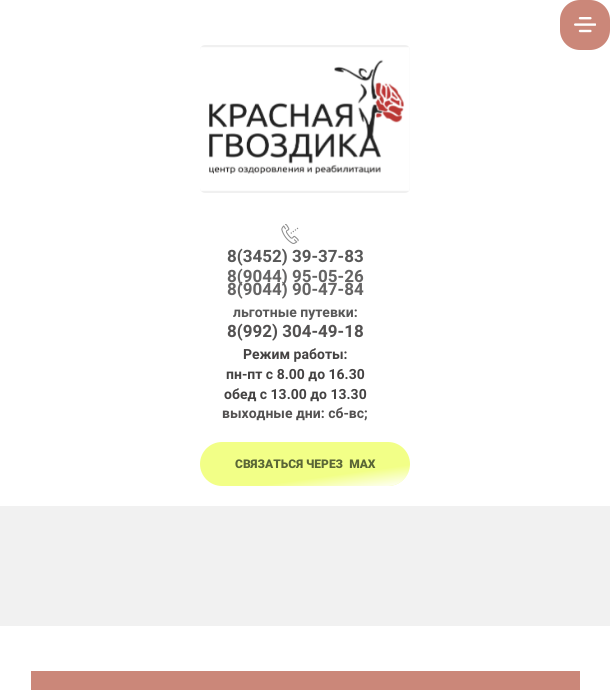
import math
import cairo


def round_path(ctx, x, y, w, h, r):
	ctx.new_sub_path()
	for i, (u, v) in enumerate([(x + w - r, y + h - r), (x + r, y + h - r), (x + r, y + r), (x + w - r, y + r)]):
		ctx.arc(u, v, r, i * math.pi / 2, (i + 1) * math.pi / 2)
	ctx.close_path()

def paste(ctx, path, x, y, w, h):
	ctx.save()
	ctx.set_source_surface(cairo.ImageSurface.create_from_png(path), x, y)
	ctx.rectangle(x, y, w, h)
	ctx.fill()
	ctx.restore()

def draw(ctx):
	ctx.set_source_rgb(1, 1, 1)
	ctx.paint()
	ctx.set_source_rgb(0.796, 0.529, 0.475)
	round_path(ctx, 560, 0, 50, 50, 20)
	ctx.fill()
	paste(ctx, 'media/1.png', 574, 17, 22, 16)
	ctx.set_source_rgb(0.941, 0.941, 0.941)
	round_path(ctx, 200, 45, 210, 148, 5)
	ctx.fill()
	paste(ctx, 'media/2.png', 200, 47, 210, 144)
	paste(ctx, 'media/3.png', 281, 224, 18, 20)
	ctx.select_font_face('Roboto', cairo.FONT_SLANT_NORMAL, cairo.FONT_WEIGHT_BOLD)
	ctx.set_font_size(17)
	ctx.set_source_rgb(0.345, 0.345, 0.345)
	ctx.move_to(227, 262)
	ctx.show_text('8(3452) 39-37-83')
	ctx.set_source_rgb(0.396, 0.392, 0.392)
	ctx.move_to(227, 282)
	ctx.show_text('8(9044) 95-05-26')
	ctx.move_to(227, 295)
	ctx.show_text('8(9044) 90-47-84')
	ctx.set_font_size(14)
	ctx.set_source_rgb(0.345, 0.345, 0.345)
	ctx.move_to(233, 317)
	ctx.show_text('льготные путевки:')
	ctx.set_font_size(17)
	ctx.set_source_rgb(0.325, 0.318, 0.318)
	ctx.move_to(227, 337)
	ctx.show_text('8(992) 304-49-18')
	ctx.set_font_size(14)
	ctx.set_source_rgb(0.267, 0.259, 0.259)
	for x, y, s in [
		(243, 359, 'Режим работы:'),
		(226, 379, 'пн-пт с 8.00 до 16.30'),
		(224, 399, 'обед с 13.00 до 13.30'),
	]:
		ctx.move_to(x, y)
		ctx.show_text(s)
	ctx.set_source_rgb(0.325, 0.318, 0.318)
	ctx.move_to(222, 418)
	ctx.show_text('выходные дни: сб-вс;')
	ctx.set_source_rgb(0.949, 1, 0.529)
	round_path(ctx, 200, 442, 210, 44, 22)
	ctx.fill()
	gradient = cairo.LinearGradient(300, 428, 310, 500)
	gradient.add_color_stop_rgba(0.71, 1, 1, 1, 0)
	gradient.add_color_stop_rgba(1, 1, 1, 1, 1)
	ctx.set_source(gradient)
	round_path(ctx, 200, 442, 210, 44, 22)
	ctx.fill()
	ctx.select_font_face('Roboto Black')
	ctx.set_font_size(12)
	ctx.set_source_rgb(0.353, 0.4, 0.212)
	ctx.move_to(235, 468)
	ctx.show_text('СВЯЗАТЬСЯ ЧЕРЕЗ  МАХ')
	ctx.set_source_rgb(0.945, 0.945, 0.945)
	ctx.rectangle(0, 506, 610, 120)
	ctx.fill()
	ctx.set_source_rgb(0.796, 0.529, 0.475)
	ctx.rectangle(31, 671, 549, 19)
	ctx.fill()


surface = cairo.ImageSurface(cairo.FORMAT_RGB24, 610, 696)
ctx = cairo.Context(surface)
options = cairo.FontOptions()
options.set_hint_metrics(cairo.HINT_METRICS_OFF)
options.set_hint_style(cairo.HINT_STYLE_NONE)
ctx.set_font_options(options)
ctx.set_miter_limit(4)
draw(ctx)
surface.write_to_png('image.png')
